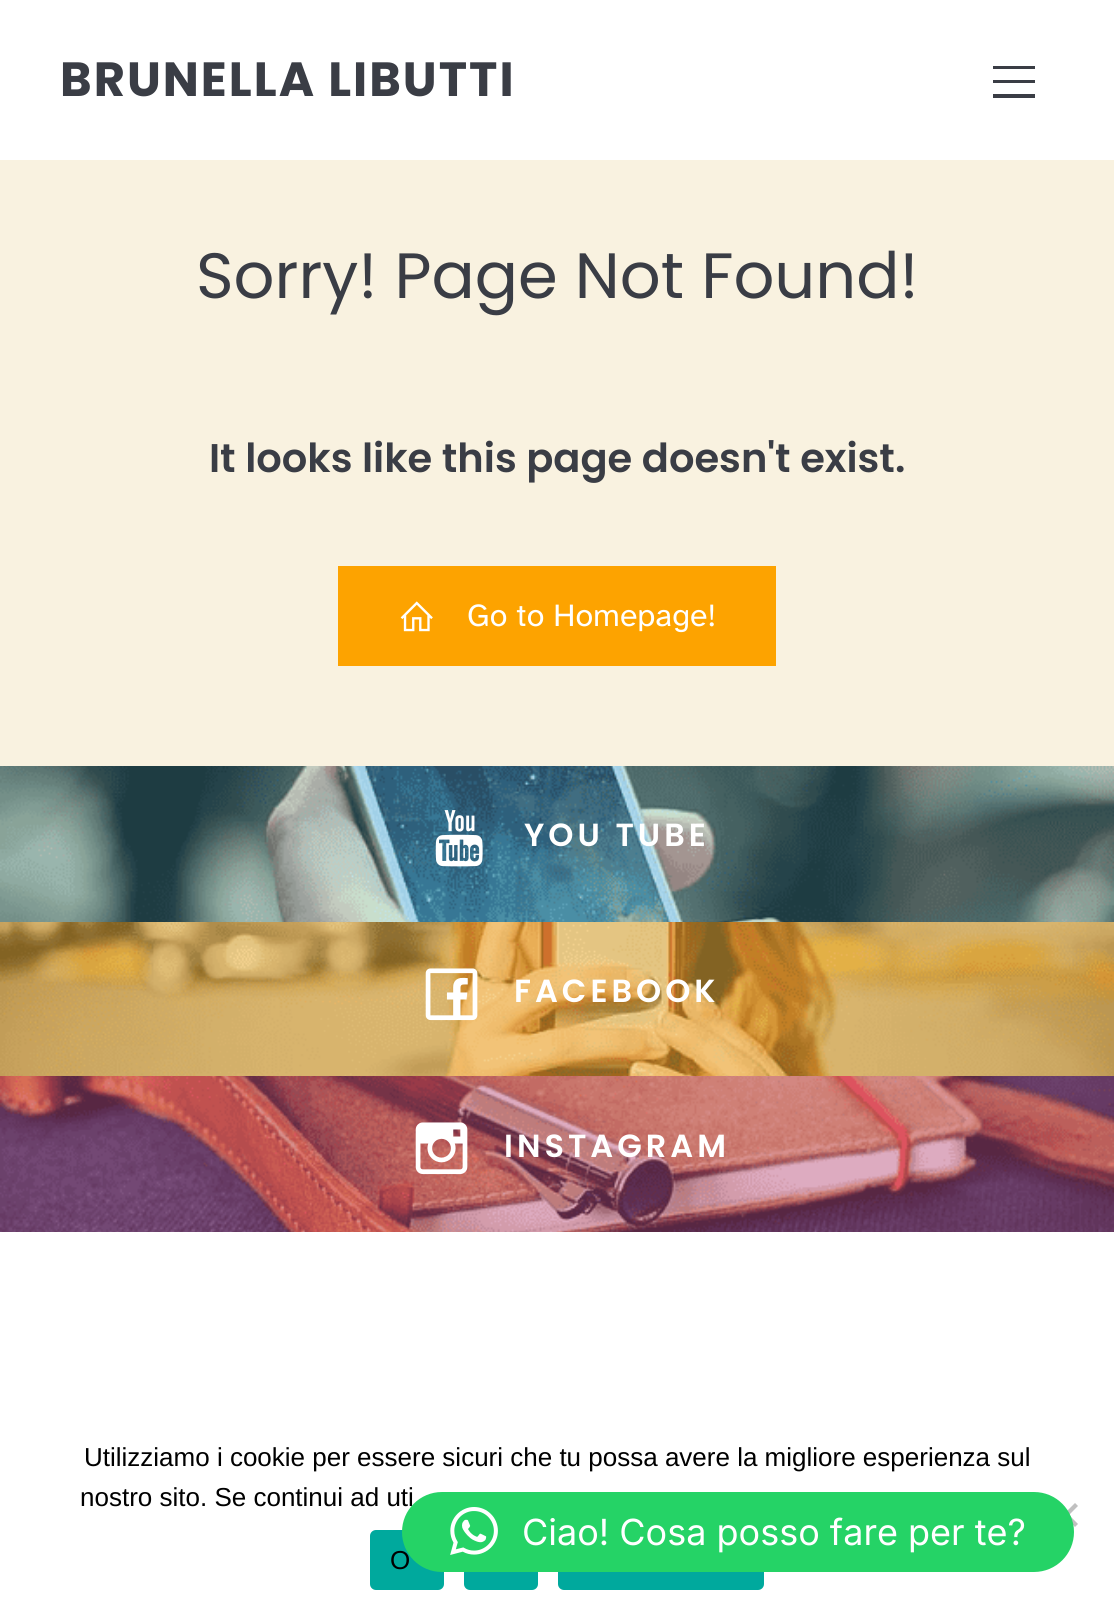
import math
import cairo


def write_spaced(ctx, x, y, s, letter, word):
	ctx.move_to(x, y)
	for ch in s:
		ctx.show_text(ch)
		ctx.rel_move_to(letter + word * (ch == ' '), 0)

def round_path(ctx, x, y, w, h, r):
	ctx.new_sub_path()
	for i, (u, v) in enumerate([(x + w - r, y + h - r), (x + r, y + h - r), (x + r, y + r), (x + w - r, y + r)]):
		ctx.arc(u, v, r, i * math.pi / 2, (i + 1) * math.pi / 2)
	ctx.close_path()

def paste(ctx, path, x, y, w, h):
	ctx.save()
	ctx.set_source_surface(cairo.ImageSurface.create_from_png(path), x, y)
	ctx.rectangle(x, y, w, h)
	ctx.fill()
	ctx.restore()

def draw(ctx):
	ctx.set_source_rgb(0.976, 0.949, 0.878)
	ctx.paint()
	ctx.set_source_rgb(1, 1, 1)
	ctx.rectangle(0, 0, 1114, 160)
	ctx.fill()
	ctx.select_font_face('Poppins', cairo.FONT_SLANT_NORMAL, cairo.FONT_WEIGHT_BOLD)
	ctx.set_font_size(48)
	ctx.set_source_rgb(0.227, 0.239, 0.271)
	write_spaced(ctx, 60, 96, 'BRUNELLA LIBUTTI', 2, 0)
	ctx.new_path()
	ctx.move_to(993, 66)
	ctx.line_to(1035, 66)
	ctx.line_to(1035, 69)
	ctx.line_to(993, 69)
	ctx.close_path()
	ctx.move_to(993, 80)
	ctx.line_to(1035, 80)
	ctx.line_to(1035, 83)
	ctx.line_to(993, 83)
	ctx.close_path()
	ctx.move_to(993, 94)
	ctx.line_to(1035, 94)
	ctx.line_to(1035, 98)
	ctx.line_to(993, 98)
	ctx.close_path()
	ctx.fill()
	ctx.select_font_face('Poppins')
	ctx.set_font_size(64)
	ctx.move_to(196, 298)
	ctx.show_text('Sorry! Page Not Found!')
	ctx.select_font_face('Poppins SemiBold')
	ctx.set_font_size(40)
	ctx.move_to(209, 472)
	ctx.show_text('It looks like this page doesn\'t exist.')
	ctx.set_source_rgb(0.992, 0.639, 0)
	ctx.rectangle(338, 566, 438, 100)
	ctx.fill()
	paste(ctx, 'media/1.png', 400, 601, 33, 31)
	ctx.select_font_face('Atkinson Hyperlegible')
	ctx.set_font_size(32)
	ctx.set_source_rgb(1, 1, 1)
	ctx.move_to(467, 626)
	ctx.show_text('Go to Homepage!')
	paste(ctx, 'media/2.png', 0, 766, 1114, 156)
	paste(ctx, 'media/3.png', 435, 810, 48, 57)
	ctx.select_font_face('Poppins SemiBold')
	write_spaced(ctx, 524, 846, 'YOU TUBE', 4, 0)
	paste(ctx, 'media/4.png', 0, 922, 1114, 154)
	paste(ctx, 'media/5.png', 425, 968, 53, 53)
	write_spaced(ctx, 514, 1002, 'FACEBOOK', 4, 0)
	paste(ctx, 'media/6.png', 0, 1076, 1114, 156)
	paste(ctx, 'media/7.png', 415, 1122, 53, 53)
	write_spaced(ctx, 504, 1157, 'INSTAGRAM', 4, 0)
	ctx.rectangle(0, 1232, 1114, 388)
	ctx.fill()
	ctx.select_font_face('Liberation Sans')
	ctx.set_font_size(26)
	ctx.set_source_rgb(0, 0, 0)
	ctx.move_to(84, 1466)
	ctx.show_text('Utilizziamo i cookie per essere sicuri che tu possa avere la migliore esperienza sul')
	ctx.move_to(80, 1506)
	ctx.show_text('nostro sito. Se continui ad uti')
	ctx.set_source_rgb(0.753, 0.753, 0.753)
	ctx.new_path()
	ctx.move_to(1075, 1503)
	ctx.line_to(1078, 1506)
	ctx.line_to(1057, 1527)
	ctx.line_to(1054, 1524)
	ctx.close_path()
	ctx.fill()
	ctx.new_path()
	ctx.move_to(1054, 1506)
	ctx.line_to(1057, 1503)
	ctx.line_to(1078, 1524)
	ctx.line_to(1075, 1527)
	ctx.close_path()
	ctx.fill()
	ctx.set_source_rgb(0, 0.663, 0.616)
	round_path(ctx, 370, 1530, 74, 60, 6)
	ctx.fill()
	ctx.set_source_rgb(0, 0, 0)
	ctx.move_to(390, 1569)
	ctx.show_text('O')
	ctx.set_source_rgb(0, 0.663, 0.616)
	round_path(ctx, 464, 1530, 74, 60, 6)
	ctx.fill()
	round_path(ctx, 558, 1530, 206, 60, 6)
	ctx.fill()
	ctx.set_source_rgb(0.145, 0.827, 0.4)
	round_path(ctx, 402, 1492, 672, 80, 40)
	ctx.fill()
	paste(ctx, 'media/8.png', 450, 1507, 48, 48)
	ctx.select_font_face('Inter')
	ctx.set_font_size(36)
	ctx.set_source_rgb(1, 1, 1)
	ctx.move_to(522, 1545)
	ctx.show_text('Ciao! Cosa posso fare per te?')


surface = cairo.ImageSurface(cairo.FORMAT_RGB24, 1114, 1620)
ctx = cairo.Context(surface)
options = cairo.FontOptions()
options.set_hint_metrics(cairo.HINT_METRICS_OFF)
options.set_hint_style(cairo.HINT_STYLE_NONE)
ctx.set_font_options(options)
ctx.set_miter_limit(4)
draw(ctx)
surface.write_to_png('image.png')
